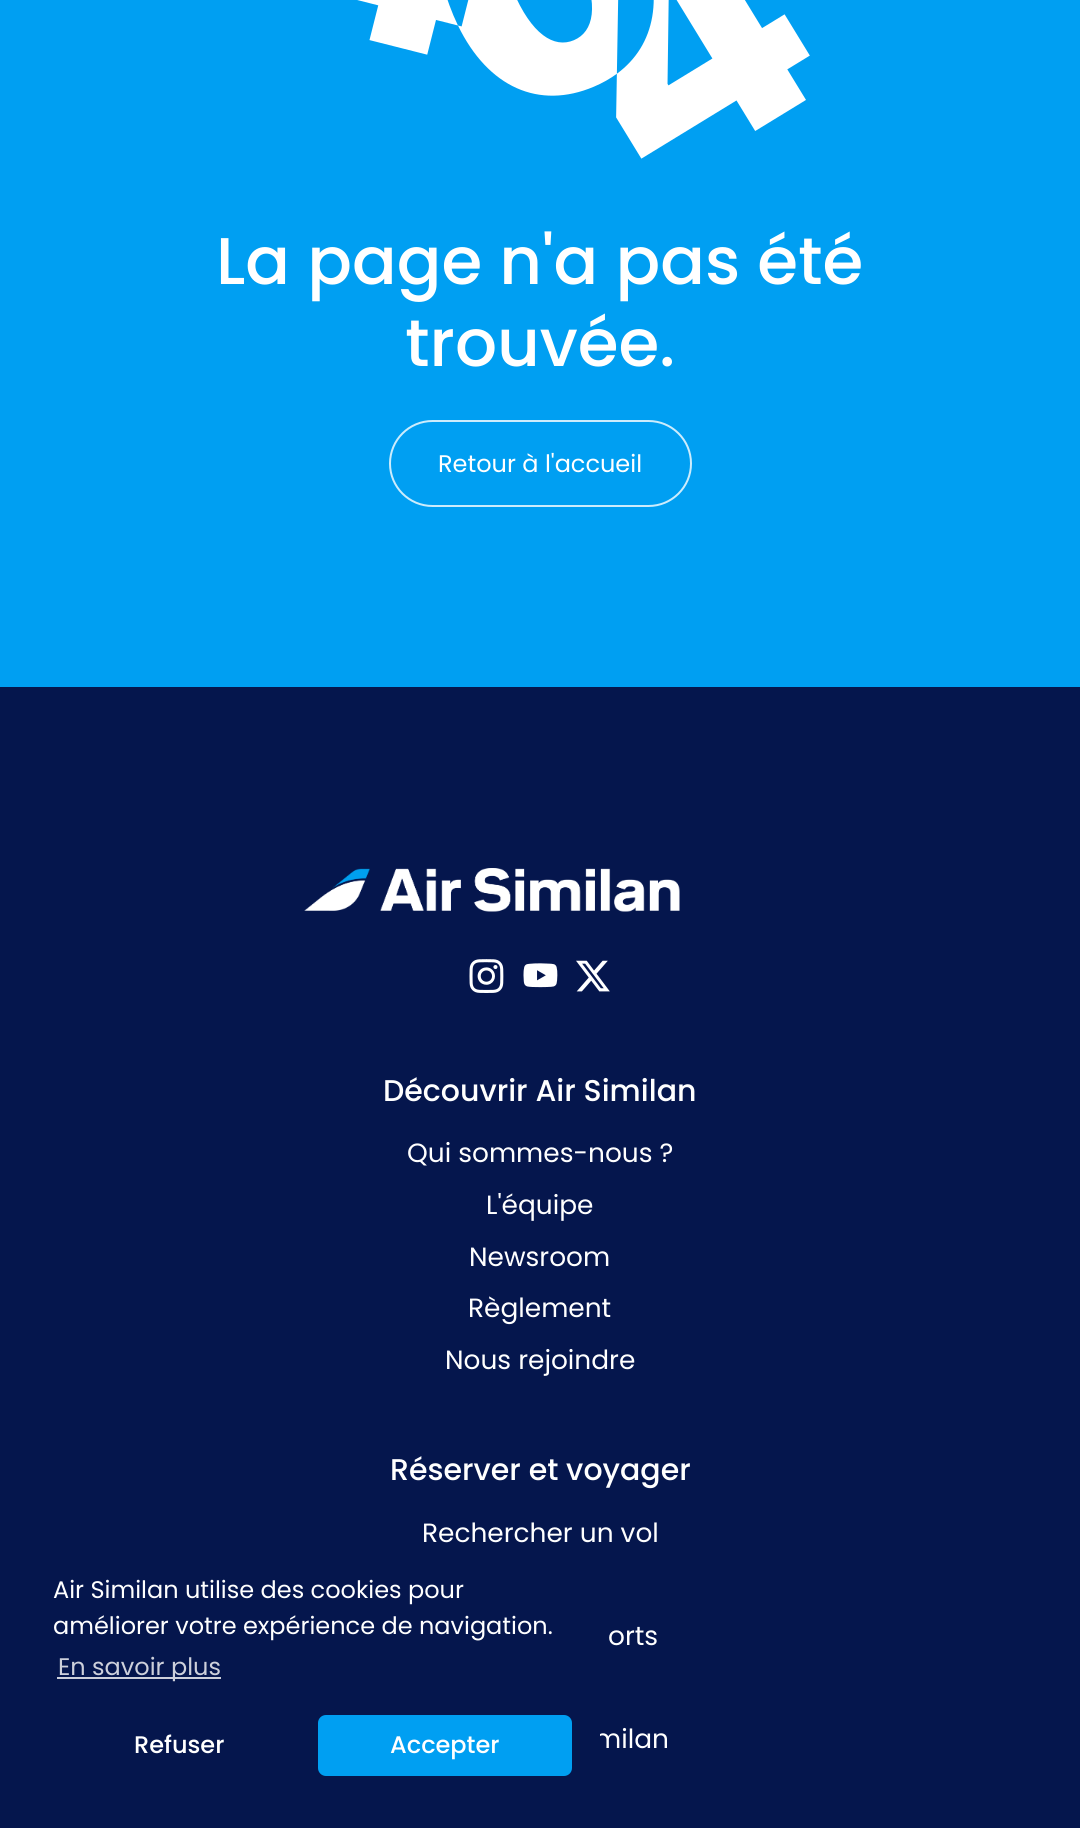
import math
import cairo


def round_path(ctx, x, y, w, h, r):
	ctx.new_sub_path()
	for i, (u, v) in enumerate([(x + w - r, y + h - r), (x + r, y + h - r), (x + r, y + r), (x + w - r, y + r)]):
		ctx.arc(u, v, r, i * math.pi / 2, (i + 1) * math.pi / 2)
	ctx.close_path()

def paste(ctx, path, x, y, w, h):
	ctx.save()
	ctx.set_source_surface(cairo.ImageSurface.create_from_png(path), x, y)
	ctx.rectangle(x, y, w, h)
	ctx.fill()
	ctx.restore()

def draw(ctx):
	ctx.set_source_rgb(0.02, 0.086, 0.302)
	ctx.paint()
	ctx.set_source_rgb(0, 0.624, 0.949)
	ctx.rectangle(0, 0, 1080, 687)
	ctx.fill()
	paste(ctx, 'media/1.png', 357, 0, 453, 159)
	ctx.select_font_face('Poppins Medium')
	ctx.set_font_size(66)
	ctx.set_source_rgb(1, 1, 1)
	ctx.move_to(216, 284)
	ctx.show_text('La page n\'a pas été')
	ctx.move_to(405, 366)
	ctx.show_text('trouvée.')
	round_path(ctx, 390, 421, 301, 85, 42.5)
	ctx.set_source_rgb(0.8, 0.925, 0.988)
	ctx.stroke()
	ctx.select_font_face('Poppins')
	ctx.set_font_size(24)
	ctx.set_source_rgb(1, 1, 1)
	ctx.move_to(438, 472)
	ctx.show_text('Retour à l\'accueil')
	paste(ctx, 'media/2.png', 304, 868, 376, 44)
	paste(ctx, 'media/3.png', 469, 959, 35, 34)
	paste(ctx, 'media/4.png', 523, 963, 35, 25)
	paste(ctx, 'media/5.png', 576, 960, 34, 32)
	ctx.select_font_face('Poppins Medium')
	ctx.set_font_size(30)
	ctx.move_to(383, 1101)
	ctx.show_text('Découvrir Air Similan')
	ctx.select_font_face('Poppins')
	ctx.set_font_size(26.4)
	for x, y, s in [
		(407, 1162, 'Qui sommes-nous ?'),
		(486, 1214, 'L\'équipe'),
		(469, 1266, 'Newsroom'),
		(468, 1317, 'Règlement'),
		(445, 1369, 'Nous rejoindre'),
	]:
		ctx.move_to(x, y)
		ctx.show_text(s)
	ctx.select_font_face('Poppins Medium')
	ctx.set_font_size(30)
	ctx.move_to(390, 1480)
	ctx.show_text('Réserver et voyager')
	ctx.select_font_face('Poppins')
	ctx.set_font_size(26.4)
	for x, y, s in [
		(422, 1542, 'Rechercher un vol'),
		(608, 1645, 'orts'),
		(594, 1748, 'milan'),
	]:
		ctx.move_to(x, y)
		ctx.show_text(s)
	ctx.set_source_rgb(0.02, 0.086, 0.302)
	round_path(ctx, 24, 1544, 576, 261, 8)
	ctx.fill()
	ctx.set_font_size(24)
	ctx.set_source_rgb(1, 1, 1)
	ctx.move_to(53, 1598)
	ctx.show_text('Air Similan utilise des cookies pour')
	ctx.move_to(53, 1634)
	ctx.show_text('améliorer votre expérience de navigation.')
	ctx.set_source_rgb(0.804, 0.816, 0.859)
	ctx.rectangle(57, 1677, 164, 2)
	ctx.fill()
	ctx.move_to(58, 1675)
	ctx.show_text('En savoir plus')
	ctx.select_font_face('Poppins Medium')
	ctx.set_source_rgb(1, 1, 1)
	ctx.move_to(134, 1753)
	ctx.show_text('Refuser')
	ctx.set_source_rgb(0, 0.624, 0.949)
	round_path(ctx, 318, 1715, 254, 61, 8)
	ctx.fill()
	ctx.set_source_rgb(1, 1, 1)
	ctx.move_to(390, 1753)
	ctx.show_text('Accepter')


surface = cairo.ImageSurface(cairo.FORMAT_RGB24, 1080, 1828)
ctx = cairo.Context(surface)
options = cairo.FontOptions()
options.set_hint_metrics(cairo.HINT_METRICS_OFF)
options.set_hint_style(cairo.HINT_STYLE_NONE)
ctx.set_font_options(options)
ctx.set_miter_limit(4)
draw(ctx)
surface.write_to_png('image.png')
